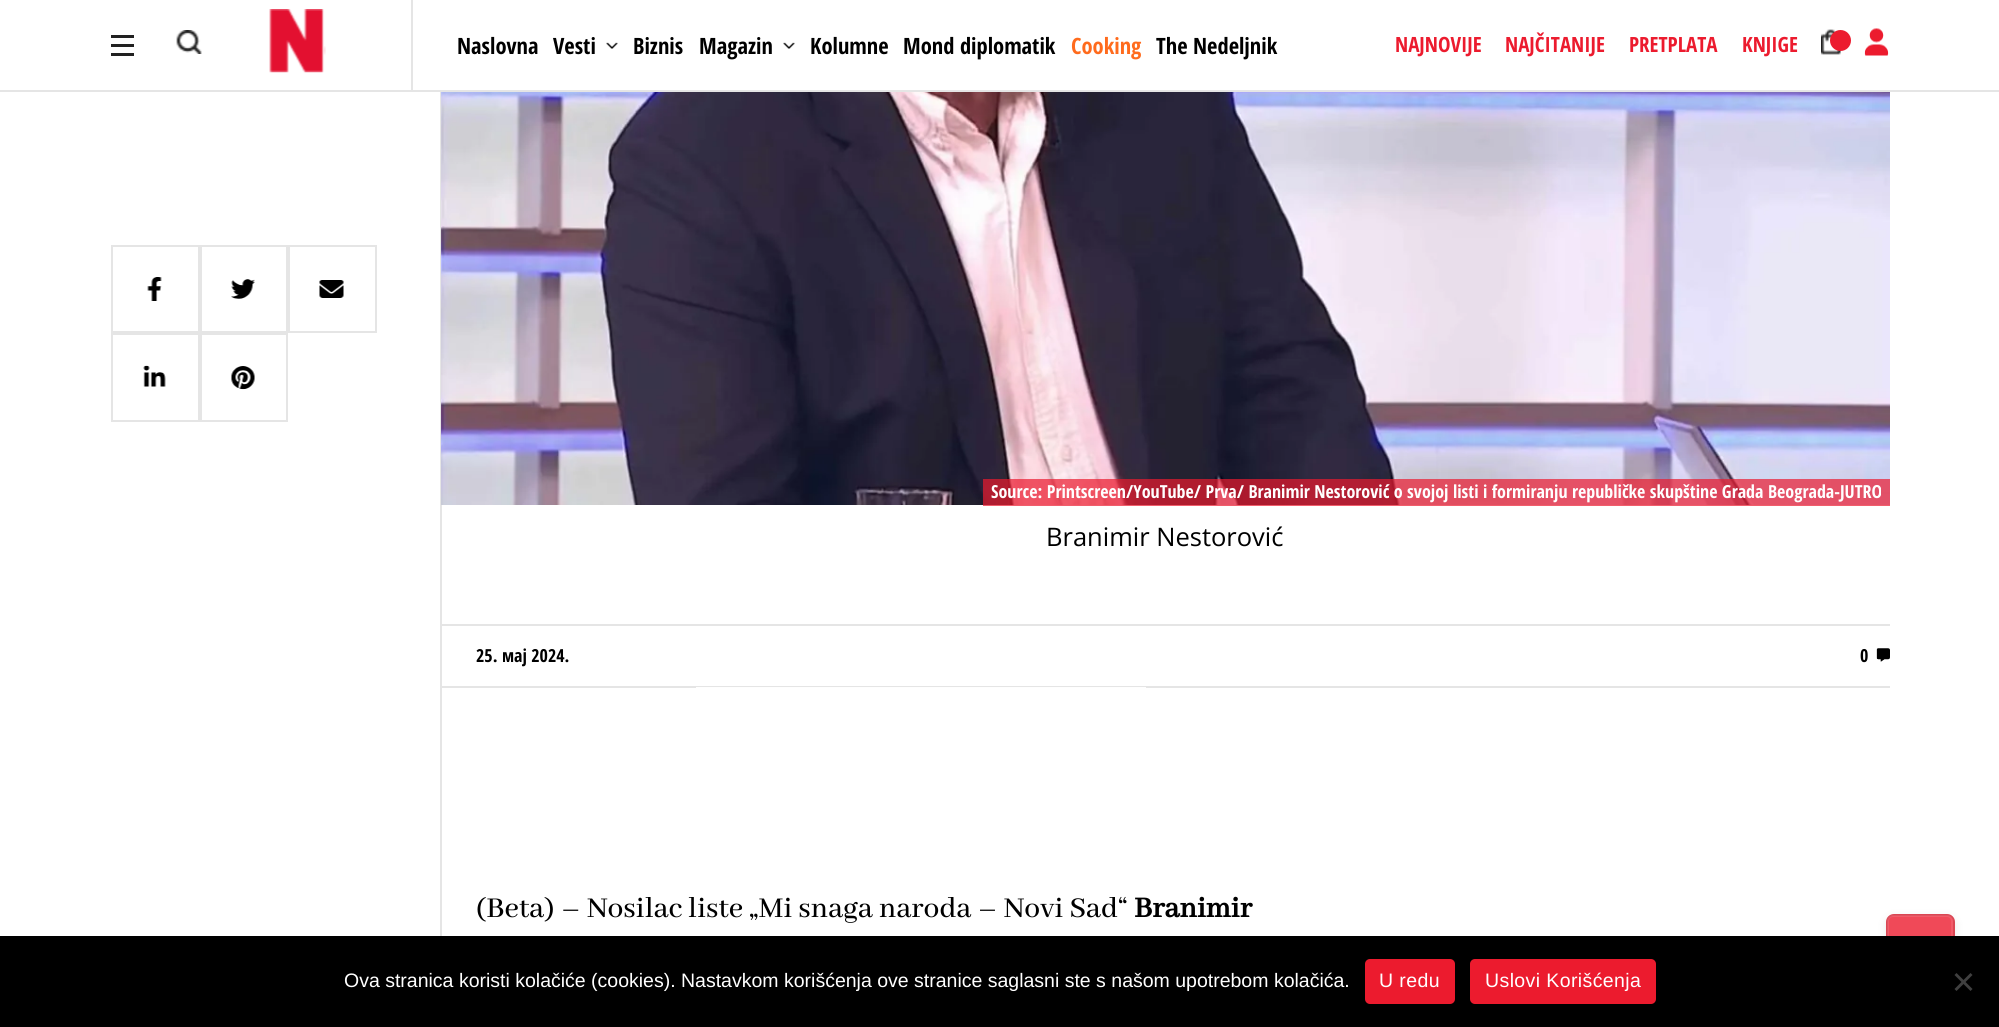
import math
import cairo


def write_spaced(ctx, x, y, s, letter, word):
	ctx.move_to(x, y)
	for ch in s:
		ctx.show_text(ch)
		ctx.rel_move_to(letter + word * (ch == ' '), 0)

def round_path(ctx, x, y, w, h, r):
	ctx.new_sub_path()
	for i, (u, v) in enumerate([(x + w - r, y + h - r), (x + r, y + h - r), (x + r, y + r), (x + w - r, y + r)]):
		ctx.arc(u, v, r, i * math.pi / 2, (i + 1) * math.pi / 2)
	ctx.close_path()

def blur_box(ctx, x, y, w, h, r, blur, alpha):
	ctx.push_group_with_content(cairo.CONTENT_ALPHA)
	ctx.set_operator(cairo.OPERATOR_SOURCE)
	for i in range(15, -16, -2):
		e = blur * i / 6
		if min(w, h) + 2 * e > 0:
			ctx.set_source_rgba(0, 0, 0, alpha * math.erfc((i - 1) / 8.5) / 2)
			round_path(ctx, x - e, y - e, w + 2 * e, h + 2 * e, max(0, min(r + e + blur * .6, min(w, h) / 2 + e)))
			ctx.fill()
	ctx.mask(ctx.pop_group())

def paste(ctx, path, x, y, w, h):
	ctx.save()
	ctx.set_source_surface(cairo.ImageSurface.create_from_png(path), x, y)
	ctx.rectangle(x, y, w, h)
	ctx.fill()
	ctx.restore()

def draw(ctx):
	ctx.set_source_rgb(1, 1, 1)
	ctx.paint()
	ctx.set_source_rgb(0.898, 0.898, 0.898)
	ctx.rectangle(0, 90, 1999, 2)
	ctx.fill()
	ctx.set_source_rgb(0.129, 0.129, 0.129)
	ctx.rectangle(111, 35, 23, 3)
	ctx.rectangle(111, 44, 23, 3)
	ctx.rectangle(111, 53, 23, 3)
	ctx.fill()
	paste(ctx, 'media/1.png', 176, 30, 26, 24)
	paste(ctx, 'media/2.png', 269, 9, 57, 64)
	ctx.set_source_rgb(0.898, 0.898, 0.898)
	ctx.rectangle(411, 0, 2, 90)
	ctx.fill()
	ctx.select_font_face('Open Sans Condensed', cairo.FONT_SLANT_NORMAL, cairo.FONT_WEIGHT_BOLD)
	ctx.set_font_size(22.5)
	ctx.set_source_rgb(0, 0, 0)
	ctx.move_to(457, 54)
	ctx.show_text('Naslovna')
	ctx.move_to(553, 54)
	ctx.show_text('Vesti')
	paste(ctx, 'media/3.png', 606, 42, 12, 7)
	ctx.move_to(633, 54)
	ctx.show_text('Biznis')
	ctx.move_to(699, 54)
	ctx.show_text('Magazin')
	paste(ctx, 'media/3.png', 783, 42, 12, 7)
	ctx.move_to(810, 54)
	ctx.show_text('Kolumne')
	ctx.move_to(903, 54)
	ctx.show_text('Mond diplomatik')
	ctx.set_source_rgb(1, 0.42, 0.114)
	ctx.move_to(1071, 54)
	ctx.show_text('Cooking')
	ctx.set_source_rgb(0, 0, 0)
	ctx.move_to(1156, 54)
	ctx.show_text('The Nedeljnik')
	ctx.set_font_size(21)
	ctx.set_source_rgb(0.925, 0.106, 0.18)
	for x, y, s in [
		(1395, 52, 'NAJNOVIJE'),
		(1505, 52, 'NAJČITANIJE'),
		(1629, 52, 'PRETPLATA'),
		(1742, 52, 'KNJIGE'),
	]:
		ctx.move_to(x, y)
		ctx.show_text(s)
	paste(ctx, 'media/4.png', 1821, 29, 20, 26)
	ctx.arc(1840.5, 40.5, 10.5, 0, 2 * math.pi)
	ctx.fill()
	paste(ctx, 'media/5.png', 1864, 28, 25, 28)
	ctx.rectangle(112, 246, 87, 86)
	ctx.set_source_rgb(0.898, 0.898, 0.898)
	ctx.stroke()
	paste(ctx, 'media/6.png', 147, 277, 15, 24)
	ctx.rectangle(201, 246, 86, 86)
	ctx.stroke()
	paste(ctx, 'media/7.png', 231, 279, 24, 20)
	ctx.rectangle(289, 246, 87, 86)
	ctx.stroke()
	paste(ctx, 'media/8.png', 319, 280, 25, 18)
	ctx.rectangle(112, 334, 87, 87)
	ctx.stroke()
	paste(ctx, 'media/9.png', 143, 365, 23, 22)
	ctx.rectangle(201, 334, 86, 87)
	ctx.stroke()
	paste(ctx, 'media/10.png', 231, 366, 24, 24)
	ctx.rectangle(440, 92, 2, 844)
	ctx.fill()
	paste(ctx, 'media/11.png', 441, 92, 1449, 413)
	ctx.set_source_rgba(0.925, 0.106, 0.18, 0.7)
	ctx.rectangle(983, 479, 907, 27)
	ctx.fill()
	ctx.set_font_size(18)
	ctx.set_source_rgb(1, 1, 1)
	ctx.move_to(991, 498)
	ctx.show_text('Source: Printscreen/YouTube/ Prva/ Branimir Nestorović o svojoj listi i formiranju republičke skupštine Grada Beograda-JUTRO')
	ctx.select_font_face('Open Sans')
	ctx.set_font_size(25.5)
	ctx.set_source_rgb(0, 0, 0)
	ctx.move_to(1046, 546)
	ctx.show_text('Branimir Nestorović')
	ctx.set_source_rgb(0.898, 0.898, 0.898)
	ctx.rectangle(441, 624, 1449, 2)
	ctx.fill()
	ctx.rectangle(441, 686, 1449, 2)
	ctx.fill()
	ctx.select_font_face('Open Sans Condensed', cairo.FONT_SLANT_NORMAL, cairo.FONT_WEIGHT_BOLD)
	ctx.set_font_size(18)
	ctx.set_source_rgb(0, 0, 0)
	ctx.move_to(476, 662)
	ctx.show_text('25. мај 2024.')
	ctx.move_to(1860, 662)
	ctx.show_text('0')
	paste(ctx, 'media/12.png', 1876, 648, 14, 14)
	ctx.set_source_rgb(0.996, 0.996, 0.996)
	ctx.rectangle(696, 687, 450, 1)
	ctx.fill()
	ctx.select_font_face('Abhaya Libre Medium Medium')
	ctx.set_font_size(31.5)
	ctx.set_source_rgb(0, 0, 0)
	ctx.move_to(476, 917)
	ctx.show_text('(Beta) – Nosilac liste „Mi snaga naroda – Novi Sad“')
	ctx.select_font_face('Abhaya Libre Medium', cairo.FONT_SLANT_NORMAL, cairo.FONT_WEIGHT_BOLD)
	ctx.move_to(1134, 917)
	ctx.show_text('Branimir')
	ctx.set_source_rgb(0.2, 0.2, 0.2)
	blur_box(ctx, 1886, 917, 69, 69, 8, 4.5, 0.1)
	ctx.set_source_rgb(0.941, 0.286, 0.345)
	round_path(ctx, 1886, 914, 69, 69, 8)
	ctx.fill()
	round_path(ctx, 1888, 916, 64, 64, 5)
	ctx.set_source_rgb(0.949, 0.357, 0.412)
	ctx.stroke()
	round_path(ctx, 1887, 915, 67, 67, 7)
	ctx.set_source_rgba(0.2, 0.2, 0.2, 0.11)
	ctx.stroke()
	ctx.set_source_rgb(0, 0, 0)
	ctx.rectangle(0, 936, 1999, 91)
	ctx.fill()
	ctx.select_font_face('Liberation Sans')
	ctx.set_font_size(19.5)
	ctx.set_source_rgb(1, 1, 1)
	ctx.move_to(344, 987)
	ctx.show_text('Ova stranica koristi kolačiće (cookies). Nastavkom korišćenja ove stranice saglasni ste s našom upotrebom kolačića.')
	ctx.set_source_rgb(0.925, 0.106, 0.18)
	round_path(ctx, 1365, 959, 90, 45, 5)
	ctx.fill()
	ctx.set_source_rgb(1, 1, 1)
	write_spaced(ctx, 1379, 987, 'U redu', 0.4, 0)
	ctx.set_source_rgb(0.925, 0.106, 0.18)
	round_path(ctx, 1470, 959, 186, 45, 5)
	ctx.fill()
	ctx.set_source_rgb(1, 1, 1)
	write_spaced(ctx, 1485, 987, 'Uslovi Korišćenja', 0.4, 0)
	ctx.set_source_rgb(0.251, 0.251, 0.251)
	ctx.new_path()
	ctx.move_to(1970.5, 973)
	ctx.line_to(1972.5, 975)
	ctx.line_to(1956.5, 991)
	ctx.line_to(1954.5, 989)
	ctx.close_path()
	ctx.fill()
	ctx.new_path()
	ctx.move_to(1954.5, 975)
	ctx.line_to(1956.5, 973)
	ctx.line_to(1972.5, 989)
	ctx.line_to(1970.5, 991)
	ctx.close_path()
	ctx.fill()


surface = cairo.ImageSurface(cairo.FORMAT_RGB24, 1999, 1027)
ctx = cairo.Context(surface)
options = cairo.FontOptions()
options.set_hint_metrics(cairo.HINT_METRICS_OFF)
options.set_hint_style(cairo.HINT_STYLE_NONE)
ctx.set_font_options(options)
ctx.set_miter_limit(4)
draw(ctx)
surface.write_to_png('image.png')
